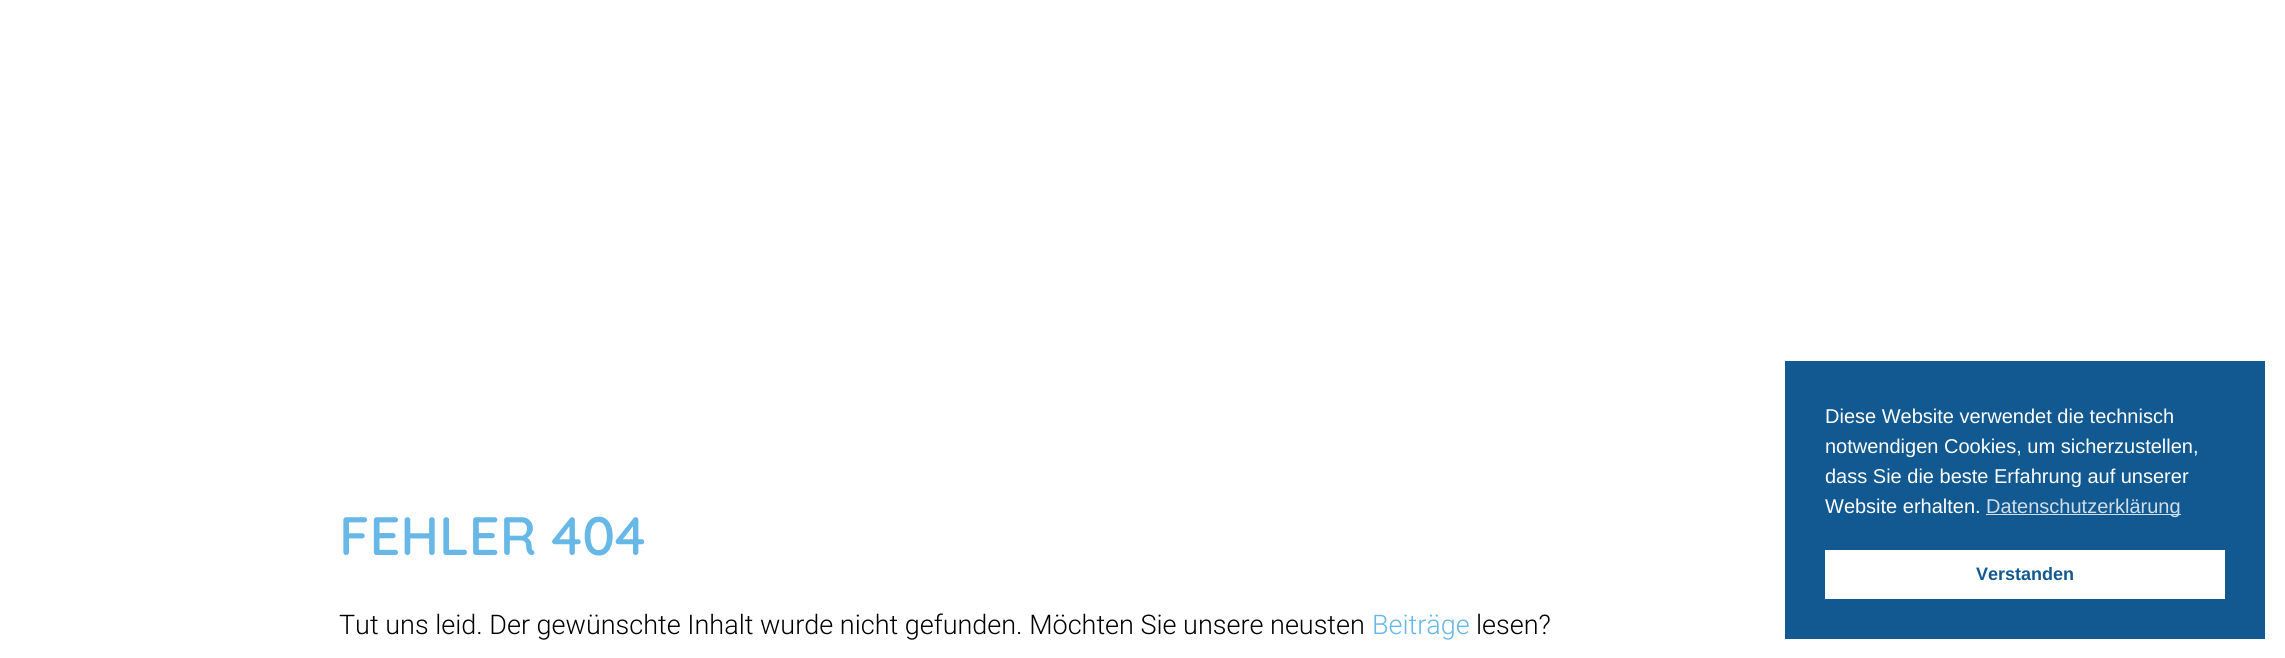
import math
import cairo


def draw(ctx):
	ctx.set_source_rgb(1, 1, 1)
	ctx.paint()
	ctx.select_font_face('Quicksand SemiBold')
	ctx.set_font_size(54)
	ctx.set_source_rgb(0.404, 0.722, 0.906)
	ctx.move_to(339, 555)
	ctx.show_text('FEHLER 404')
	ctx.select_font_face('Roboto Light')
	ctx.set_font_size(27)
	ctx.set_source_rgb(0, 0, 0)
	ctx.move_to(339, 634)
	ctx.show_text('Tut uns leid. Der gewünschte Inhalt wurde nicht gefunden. Möchten Sie unsere neusten')
	ctx.set_source_rgb(0.404, 0.722, 0.906)
	ctx.move_to(1372, 634)
	ctx.show_text('Beiträge')
	ctx.set_source_rgb(0, 0, 0)
	ctx.move_to(1476, 634)
	ctx.show_text('lesen?')
	ctx.set_source_rgb(0.075, 0.349, 0.569)
	ctx.rectangle(1785, 361, 480, 278)
	ctx.fill()
	ctx.select_font_face('Liberation Sans')
	ctx.set_font_size(20)
	ctx.set_source_rgb(1, 1, 1)
	for x, y, s in [
		(1825, 423, 'Diese Website verwendet die technisch'),
		(1825, 453, 'notwendigen Cookies, um sicherzustellen,'),
		(1825, 483, 'dass Sie die beste Erfahrung auf unserer'),
		(1825, 513, 'Website erhalten.'),
	]:
		ctx.move_to(x, y)
		ctx.show_text(s)
	ctx.set_source_rgb(0.816, 0.871, 0.914)
	ctx.rectangle(1986, 514, 195, 1)
	ctx.fill()
	ctx.move_to(1986, 513)
	ctx.show_text('Datenschutzerklärung')
	ctx.set_source_rgb(1, 1, 1)
	ctx.rectangle(1825, 550, 400, 49)
	ctx.fill()
	ctx.select_font_face('Liberation Sans', cairo.FONT_SLANT_NORMAL, cairo.FONT_WEIGHT_BOLD)
	ctx.set_font_size(18)
	ctx.set_source_rgb(0.075, 0.349, 0.569)
	ctx.move_to(1976, 580)
	ctx.show_text('Verstanden')


surface = cairo.ImageSurface(cairo.FORMAT_RGB24, 2285, 658)
ctx = cairo.Context(surface)
options = cairo.FontOptions()
options.set_hint_metrics(cairo.HINT_METRICS_OFF)
options.set_hint_style(cairo.HINT_STYLE_NONE)
ctx.set_font_options(options)
ctx.set_miter_limit(4)
draw(ctx)
surface.write_to_png('image.png')
